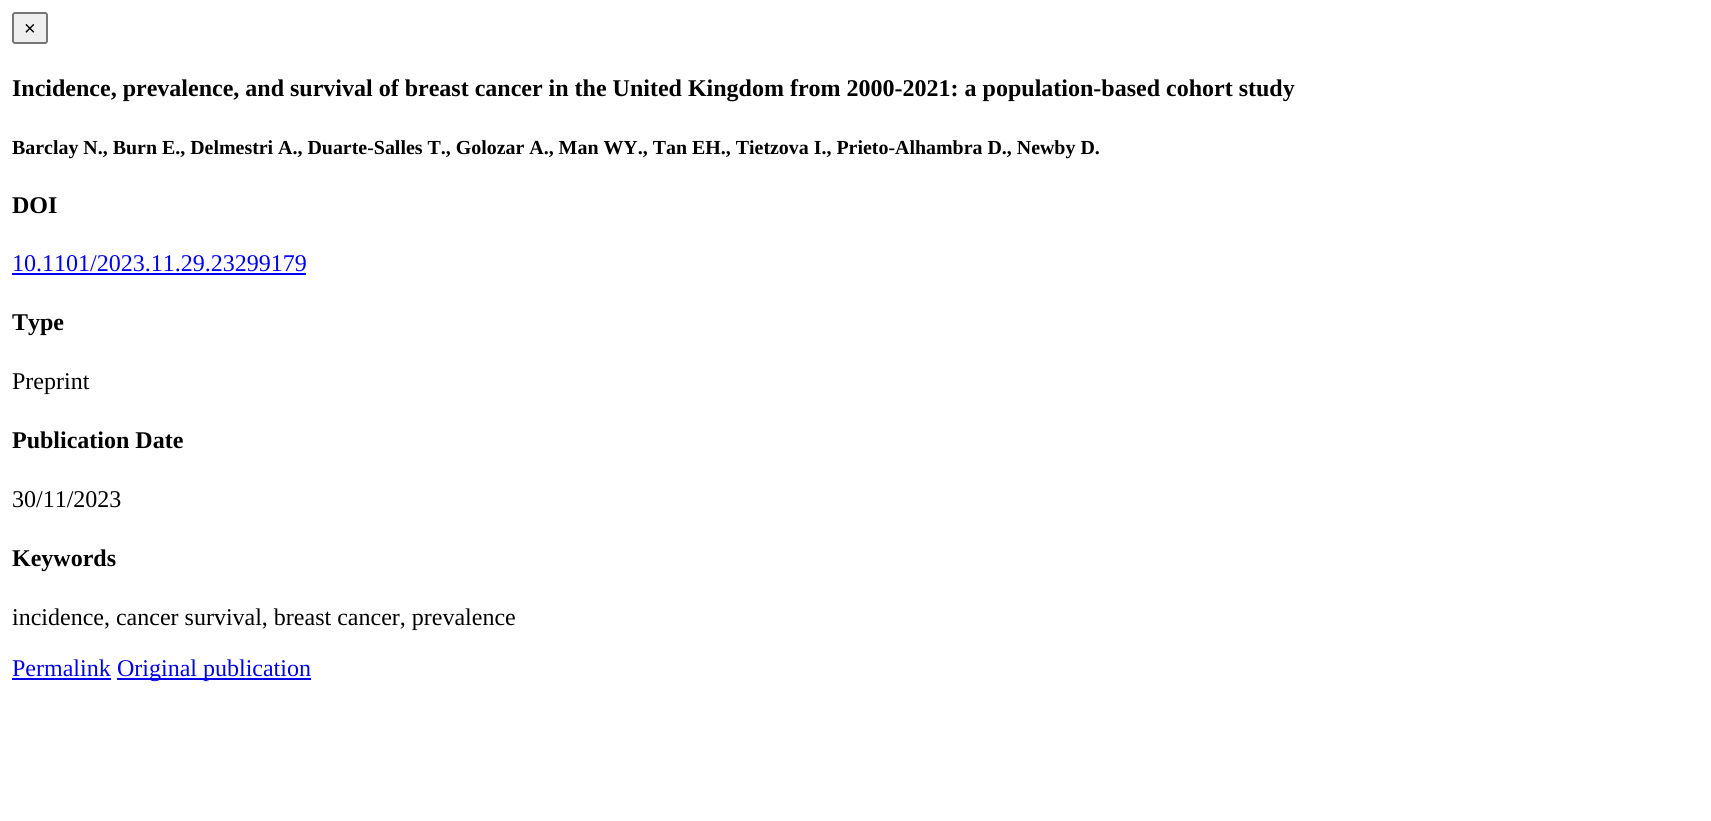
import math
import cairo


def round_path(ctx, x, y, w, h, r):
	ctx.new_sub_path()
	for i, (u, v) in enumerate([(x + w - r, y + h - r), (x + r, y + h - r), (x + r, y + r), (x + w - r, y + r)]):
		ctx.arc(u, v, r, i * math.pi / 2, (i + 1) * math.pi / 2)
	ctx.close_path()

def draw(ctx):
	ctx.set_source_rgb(1, 1, 1)
	ctx.paint()
	ctx.set_source_rgb(0.937, 0.937, 0.937)
	round_path(ctx, 13, 13, 34, 30, 2)
	ctx.fill_preserve()
	ctx.set_source_rgb(0.463, 0.463, 0.463)
	ctx.stroke()
	ctx.select_font_face('Liberation Sans')
	ctx.set_font_size(20)
	ctx.set_source_rgb(0, 0, 0)
	ctx.move_to(24, 35)
	ctx.show_text('×')
	ctx.select_font_face('Liberation Serif', cairo.FONT_SLANT_NORMAL, cairo.FONT_WEIGHT_BOLD)
	ctx.set_font_size(24)
	ctx.move_to(12, 96)
	ctx.show_text('Incidence, prevalence, and survival of breast cancer in the United Kingdom from 2000-2021: a population-based cohort study')
	ctx.set_font_size(19.92)
	ctx.move_to(12, 154)
	ctx.show_text('Barclay N., Burn E., Delmestri A., Duarte-Salles T., Golozar A., Man WY., Tan EH., Tietzova I., Prieto-Alhambra D., Newby D.')
	ctx.set_font_size(24)
	ctx.move_to(12, 213)
	ctx.show_text('DOI')
	ctx.select_font_face('Liberation Serif')
	ctx.set_source_rgb(0, 0, 0.933)
	ctx.move_to(12, 271)
	ctx.show_text('10.1101/2023.11.29.23299179')
	ctx.rectangle(12, 273, 294, 2)
	ctx.fill()
	ctx.select_font_face('Liberation Serif', cairo.FONT_SLANT_NORMAL, cairo.FONT_WEIGHT_BOLD)
	ctx.set_source_rgb(0, 0, 0)
	ctx.move_to(12, 330)
	ctx.show_text('Type')
	ctx.select_font_face('Liberation Serif')
	ctx.move_to(12, 389)
	ctx.show_text('Preprint')
	ctx.select_font_face('Liberation Serif', cairo.FONT_SLANT_NORMAL, cairo.FONT_WEIGHT_BOLD)
	ctx.move_to(12, 448)
	ctx.show_text('Publication Date')
	ctx.select_font_face('Liberation Serif')
	ctx.move_to(12, 507)
	ctx.show_text('30/11/2023')
	ctx.select_font_face('Liberation Serif', cairo.FONT_SLANT_NORMAL, cairo.FONT_WEIGHT_BOLD)
	ctx.move_to(12, 566)
	ctx.show_text('Keywords')
	ctx.select_font_face('Liberation Serif')
	ctx.move_to(12, 625)
	ctx.show_text('incidence, cancer survival, breast cancer, prevalence')
	ctx.set_source_rgb(0, 0, 0.933)
	ctx.move_to(12, 676)
	ctx.show_text('Permalink')
	ctx.rectangle(12, 678, 99, 2)
	ctx.fill()
	ctx.rectangle(117, 678, 194, 2)
	ctx.fill()
	ctx.move_to(117, 676)
	ctx.show_text('Original publication')


surface = cairo.ImageSurface(cairo.FORMAT_RGB24, 1711, 821)
ctx = cairo.Context(surface)
options = cairo.FontOptions()
options.set_hint_metrics(cairo.HINT_METRICS_OFF)
options.set_hint_style(cairo.HINT_STYLE_NONE)
ctx.set_font_options(options)
ctx.set_miter_limit(4)
draw(ctx)
surface.write_to_png('image.png')
